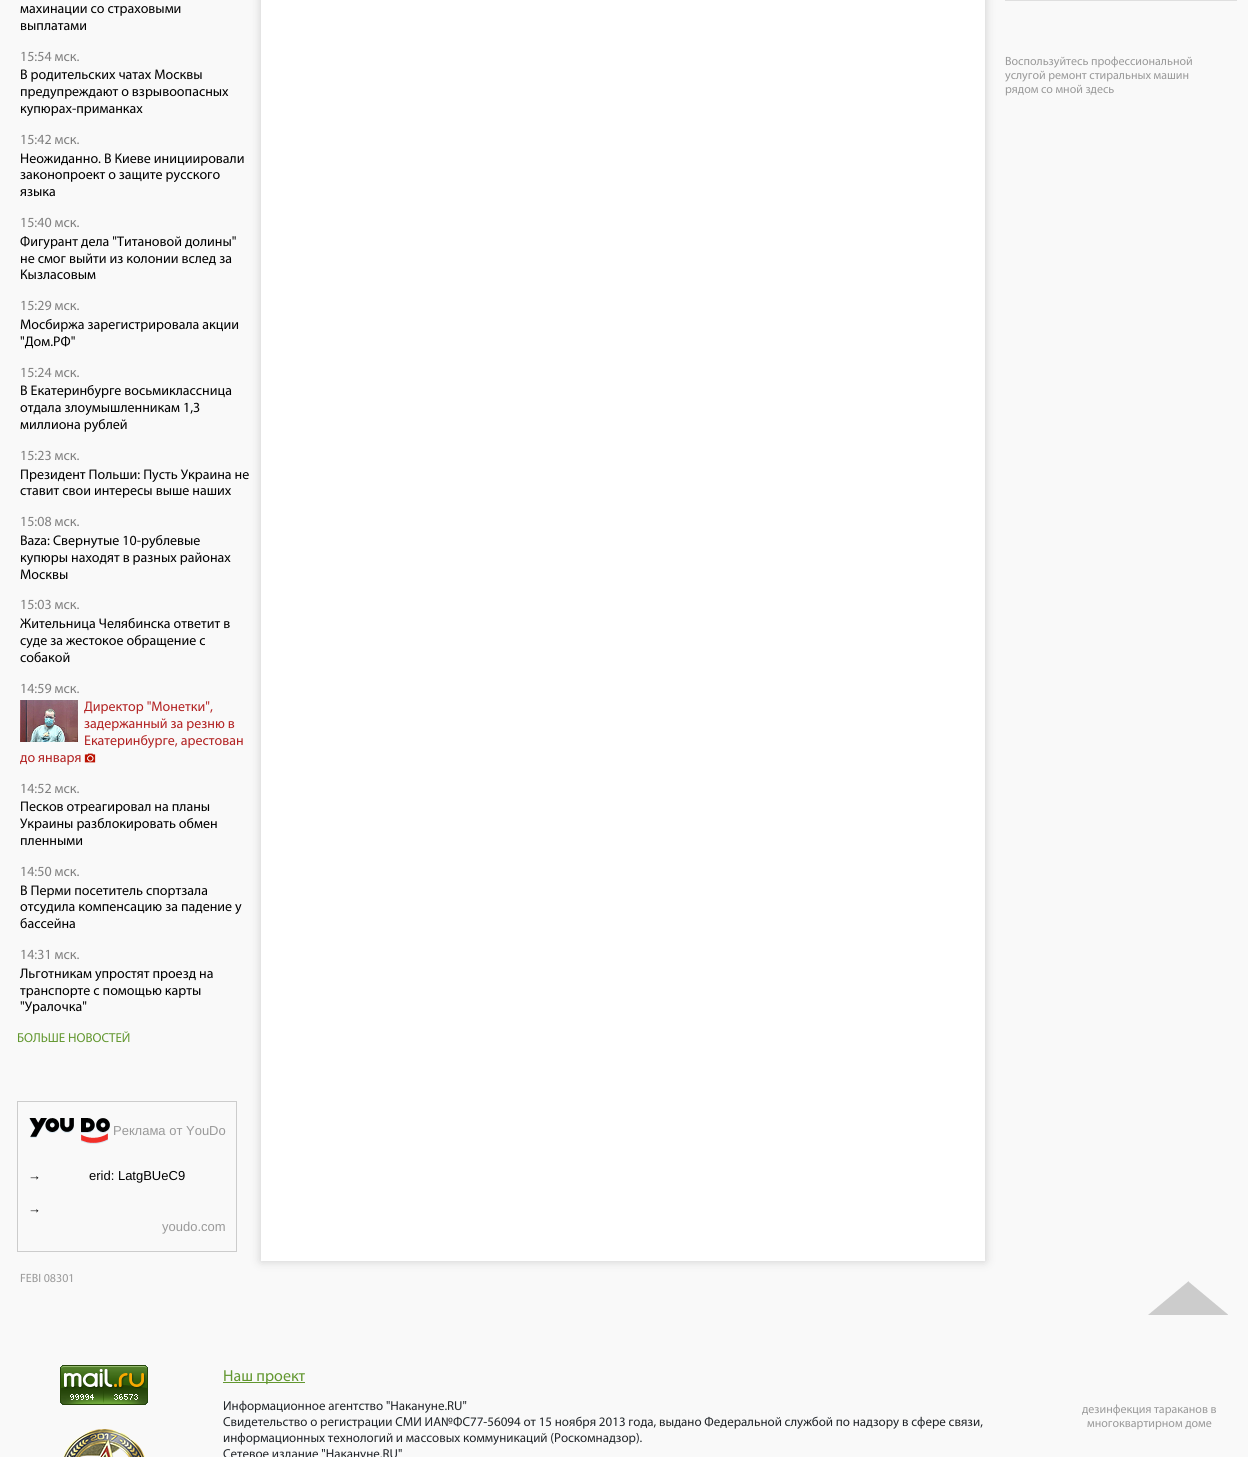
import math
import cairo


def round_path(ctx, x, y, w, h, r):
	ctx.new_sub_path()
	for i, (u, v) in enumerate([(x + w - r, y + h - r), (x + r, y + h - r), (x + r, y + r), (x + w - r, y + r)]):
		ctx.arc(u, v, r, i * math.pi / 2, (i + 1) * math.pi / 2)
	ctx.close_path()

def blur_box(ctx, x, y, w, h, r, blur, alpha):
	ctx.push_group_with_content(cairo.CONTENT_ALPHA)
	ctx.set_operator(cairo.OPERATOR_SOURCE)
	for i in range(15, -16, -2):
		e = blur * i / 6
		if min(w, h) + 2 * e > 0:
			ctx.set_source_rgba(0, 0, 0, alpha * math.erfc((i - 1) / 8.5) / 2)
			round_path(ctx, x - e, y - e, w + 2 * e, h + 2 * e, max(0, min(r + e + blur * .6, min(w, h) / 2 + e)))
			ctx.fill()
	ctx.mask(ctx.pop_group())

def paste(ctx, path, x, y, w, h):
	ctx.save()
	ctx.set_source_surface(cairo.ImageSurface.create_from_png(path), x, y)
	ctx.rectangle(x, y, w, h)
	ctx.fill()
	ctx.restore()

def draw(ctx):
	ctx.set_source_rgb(0.973, 0.973, 0.973)
	ctx.paint()
	ctx.select_font_face('Myriad')
	ctx.set_font_size(14)
	ctx.set_source_rgb(0, 0, 0)
	ctx.move_to(20, 13)
	ctx.show_text('махинации со страховыми')
	ctx.move_to(20, 30)
	ctx.show_text('выплатами')
	ctx.set_source_rgb(0.502, 0.502, 0.502)
	ctx.move_to(20, 61)
	ctx.show_text('15:54 мск.')
	ctx.set_source_rgb(0, 0, 0)
	for x, y, s in [
		(20, 79, 'В родительских чатах Москвы'),
		(20, 96, 'предупреждают о взрывоопасных'),
		(20, 113, 'купюрах-приманках'),
	]:
		ctx.move_to(x, y)
		ctx.show_text(s)
	ctx.set_source_rgb(0.502, 0.502, 0.502)
	ctx.move_to(20, 144)
	ctx.show_text('15:42 мск.')
	ctx.set_source_rgb(0, 0, 0)
	for x, y, s in [
		(20, 163, 'Неожиданно. В Киеве инициировали'),
		(20, 179, 'законопроект о защите русского'),
		(20, 196, 'языка'),
	]:
		ctx.move_to(x, y)
		ctx.show_text(s)
	ctx.set_source_rgb(0.502, 0.502, 0.502)
	ctx.move_to(20, 227)
	ctx.show_text('15:40 мск.')
	ctx.set_source_rgb(0, 0, 0)
	for x, y, s in [
		(20, 246, 'Фигурант дела "Титановой долины"'),
		(20, 263, 'не смог выйти из колонии вслед за'),
		(20, 279, 'Кызласовым'),
	]:
		ctx.move_to(x, y)
		ctx.show_text(s)
	ctx.set_source_rgb(0.502, 0.502, 0.502)
	ctx.move_to(20, 310)
	ctx.show_text('15:29 мск.')
	ctx.set_source_rgb(0, 0, 0)
	ctx.move_to(20, 329)
	ctx.show_text('Мосбиржа зарегистрировала акции')
	ctx.move_to(20, 346)
	ctx.show_text('"Дом.РФ"')
	ctx.set_source_rgb(0.502, 0.502, 0.502)
	ctx.move_to(20, 377)
	ctx.show_text('15:24 мск.')
	ctx.set_source_rgb(0, 0, 0)
	for x, y, s in [
		(20, 395, 'В Екатеринбурге восьмиклассница'),
		(20, 412, 'отдала злоумышленникам 1,3'),
		(20, 429, 'миллиона рублей'),
	]:
		ctx.move_to(x, y)
		ctx.show_text(s)
	ctx.set_source_rgb(0.502, 0.502, 0.502)
	ctx.move_to(20, 460)
	ctx.show_text('15:23 мск.')
	ctx.set_source_rgb(0.8, 0.8, 0.8)
	blur_box(ctx, 261, -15, 724, 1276, 0, 5, 1)
	ctx.set_source_rgb(0, 0, 0)
	ctx.move_to(20, 479)
	ctx.show_text('Президент Польши: Пусть Украина не')
	ctx.move_to(20, 495)
	ctx.show_text('ставит свои интересы выше наших')
	ctx.set_source_rgb(0.502, 0.502, 0.502)
	ctx.move_to(20, 526)
	ctx.show_text('15:08 мск.')
	ctx.set_source_rgb(0, 0, 0)
	for x, y, s in [
		(20, 545, 'Baza: Свернутые 10-рублевые'),
		(20, 562, 'купюры находят в разных районах'),
		(20, 579, 'Москвы'),
	]:
		ctx.move_to(x, y)
		ctx.show_text(s)
	ctx.set_source_rgb(0.502, 0.502, 0.502)
	ctx.move_to(20, 609)
	ctx.show_text('15:03 мск.')
	ctx.set_source_rgb(0, 0, 0)
	for x, y, s in [
		(20, 628, 'Жительница Челябинска ответит в'),
		(20, 645, 'суде за жестокое обращение с'),
		(20, 662, 'собакой'),
	]:
		ctx.move_to(x, y)
		ctx.show_text(s)
	ctx.set_source_rgb(0.502, 0.502, 0.502)
	ctx.move_to(20, 693)
	ctx.show_text('14:59 мск.')
	paste(ctx, 'media/1.png', 20, 700, 58, 42)
	ctx.set_source_rgb(0.698, 0.133, 0.133)
	for x, y, s in [
		(84, 711, 'Директор "Монетки",'),
		(84, 728, 'задержанный за резню в'),
		(84, 745, 'Екатеринбурге, арестован'),
		(20, 762, 'до января'),
	]:
		ctx.move_to(x, y)
		ctx.show_text(s)
	paste(ctx, 'media/2.png', 84, 753, 12, 10)
	ctx.set_source_rgb(0.502, 0.502, 0.502)
	ctx.move_to(20, 793)
	ctx.show_text('14:52 мск.')
	ctx.set_source_rgb(0, 0, 0)
	for x, y, s in [
		(20, 811, 'Песков отреагировал на планы'),
		(20, 828, 'Украины разблокировать обмен'),
		(20, 845, 'пленными'),
	]:
		ctx.move_to(x, y)
		ctx.show_text(s)
	ctx.set_source_rgb(0.502, 0.502, 0.502)
	ctx.move_to(20, 876)
	ctx.show_text('14:50 мск.')
	ctx.set_source_rgb(0, 0, 0)
	for x, y, s in [
		(20, 895, 'В Перми посетитель спортзала'),
		(20, 911, 'отсудила компенсацию за падение у'),
		(20, 928, 'бассейна'),
	]:
		ctx.move_to(x, y)
		ctx.show_text(s)
	ctx.set_source_rgb(0.502, 0.502, 0.502)
	ctx.move_to(20, 959)
	ctx.show_text('14:31 мск.')
	ctx.set_source_rgb(0, 0, 0)
	for x, y, s in [
		(20, 978, 'Льготникам упростят проезд на'),
		(20, 995, 'транспорте с помощью карты'),
		(20, 1011, '"Уралочка"'),
	]:
		ctx.move_to(x, y)
		ctx.show_text(s)
	ctx.set_font_size(13)
	ctx.set_source_rgb(0.384, 0.592, 0.184)
	ctx.move_to(17, 1042)
	ctx.show_text('БОЛЬШЕ НОВОСТЕЙ')
	ctx.rectangle(17.5, 1101.5, 219, 150)
	ctx.set_source_rgb(0.8, 0.8, 0.8)
	ctx.set_line_width(1)
	ctx.stroke()
	paste(ctx, 'media/3.png', 29, 1118, 81, 26)
	ctx.select_font_face('Liberation Sans')
	ctx.set_source_rgb(0.6, 0.6, 0.6)
	ctx.move_to(113, 1135)
	ctx.show_text('Реклама от YouDo')
	ctx.set_source_rgb(0, 0, 0)
	for x, y, s in [
		(28, 1180, '→'),
		(89, 1180, 'erid: LatgBUeC9'),
		(28, 1213, '→'),
	]:
		ctx.move_to(x, y)
		ctx.show_text(s)
	ctx.set_source_rgb(0.6, 0.6, 0.6)
	ctx.move_to(162, 1231)
	ctx.show_text('youdo.com')
	ctx.select_font_face('Myriad')
	ctx.set_font_size(12)
	ctx.move_to(20, 1282)
	ctx.show_text('FEBI 08301')
	ctx.set_source_rgb(1, 1, 1)
	ctx.rectangle(261, 0, 724, 1261)
	ctx.fill()
	ctx.set_source_rgb(0.875, 0.875, 0.875)
	ctx.rectangle(1005, 0, 232, 1)
	ctx.fill()
	ctx.set_source_rgb(0.6, 0.6, 0.6)
	for x, y, s in [
		(1005, 65, 'Воспользуйтесь профессиональной'),
		(1005, 79, 'услугой ремонт стиральных машин'),
		(1005, 93, 'рядом со мной здесь'),
	]:
		ctx.move_to(x, y)
		ctx.show_text(s)
	paste(ctx, 'media/4.png', 1148, 1281, 80, 34)
	paste(ctx, 'media/5.png', 60, 1365, 88, 40)
	paste(ctx, 'media/6.png', 63, 1429, 82, 28)
	ctx.set_source_rgb(0.384, 0.592, 0.184)
	ctx.rectangle(223, 1382, 82, 1)
	ctx.fill()
	ctx.set_font_size(16)
	ctx.move_to(223, 1381)
	ctx.show_text('Наш проект')
	ctx.set_font_size(13)
	ctx.set_source_rgb(0.129, 0.145, 0.161)
	for x, y, s in [
		(223, 1410, 'Информационное агентство "Накануне.RU"'),
		(223, 1426, 'Свидетельство о регистрации СМИ ИА№ФС77-56094 от 15 ноября 2013 года, выдано Федеральной службой по надзору в сфере связи,'),
		(223, 1442, 'информационных технологий и массовых коммуникаций (Роскомнадзор).'),
		(223, 1458, 'Сетевое издание "Накануне.RU"'),
	]:
		ctx.move_to(x, y)
		ctx.show_text(s)
	ctx.set_font_size(12)
	ctx.set_source_rgb(0.6, 0.6, 0.6)
	ctx.move_to(1082, 1413)
	ctx.show_text('дезинфекция тараканов в')
	ctx.move_to(1087, 1427)
	ctx.show_text('многоквартирном доме')


surface = cairo.ImageSurface(cairo.FORMAT_RGB24, 1248, 1457)
ctx = cairo.Context(surface)
options = cairo.FontOptions()
options.set_hint_metrics(cairo.HINT_METRICS_OFF)
options.set_hint_style(cairo.HINT_STYLE_NONE)
ctx.set_font_options(options)
ctx.set_miter_limit(4)
draw(ctx)
surface.write_to_png('image.png')
